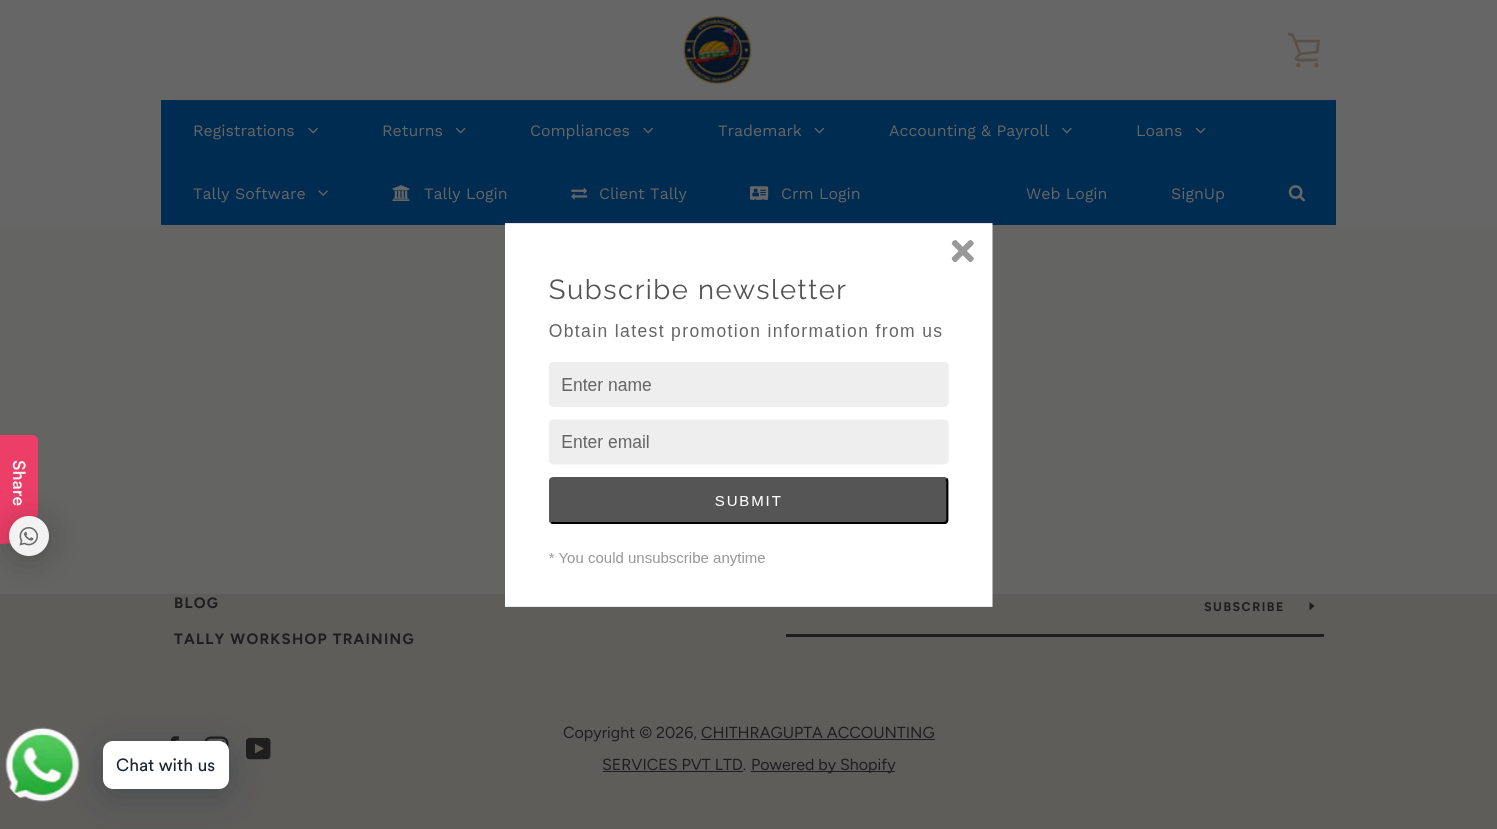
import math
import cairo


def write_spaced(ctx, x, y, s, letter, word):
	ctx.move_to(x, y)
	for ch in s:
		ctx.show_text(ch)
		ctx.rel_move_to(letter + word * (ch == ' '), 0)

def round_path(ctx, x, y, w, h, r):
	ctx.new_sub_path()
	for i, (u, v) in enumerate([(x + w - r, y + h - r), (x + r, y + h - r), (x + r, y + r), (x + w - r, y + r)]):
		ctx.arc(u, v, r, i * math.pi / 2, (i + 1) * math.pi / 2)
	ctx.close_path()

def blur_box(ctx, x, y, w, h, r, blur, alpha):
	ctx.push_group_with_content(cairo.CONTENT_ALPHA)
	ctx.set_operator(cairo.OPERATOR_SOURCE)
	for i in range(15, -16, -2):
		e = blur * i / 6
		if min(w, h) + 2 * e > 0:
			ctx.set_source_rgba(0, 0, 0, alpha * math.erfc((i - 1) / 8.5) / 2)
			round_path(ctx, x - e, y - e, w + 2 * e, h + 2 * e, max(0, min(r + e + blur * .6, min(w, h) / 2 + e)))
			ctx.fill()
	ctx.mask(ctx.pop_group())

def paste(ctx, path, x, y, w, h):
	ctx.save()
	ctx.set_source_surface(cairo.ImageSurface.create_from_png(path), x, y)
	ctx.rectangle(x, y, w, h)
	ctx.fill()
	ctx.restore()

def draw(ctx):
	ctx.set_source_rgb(0.369, 0.365, 0.353)
	ctx.paint()
	ctx.set_source_rgb(0.4, 0.4, 0.4)
	ctx.rectangle(0, 0, 1497, 225)
	ctx.fill()
	paste(ctx, 'media/1.png', 682, 15, 71, 70)
	paste(ctx, 'media/2.png', 1288, 32, 32, 36)
	ctx.set_source_rgb(0, 0.173, 0.318)
	ctx.rectangle(161, 100, 1175, 125)
	ctx.fill()
	ctx.select_font_face('Work Sans')
	ctx.set_font_size(15.9)
	ctx.set_source_rgb(0.4, 0.4, 0.4)
	ctx.move_to(193, 136)
	ctx.show_text('Registrations')
	paste(ctx, 'media/3.png', 308, 127, 10, 7)
	ctx.move_to(382, 136)
	ctx.show_text('Returns')
	paste(ctx, 'media/4.png', 455, 127, 11, 7)
	ctx.move_to(530, 136)
	ctx.show_text('Compliances')
	paste(ctx, 'media/3.png', 643, 127, 10, 7)
	ctx.move_to(718, 136)
	ctx.show_text('Trademark')
	paste(ctx, 'media/5.png', 814, 127, 11, 7)
	ctx.move_to(889, 136)
	ctx.show_text('Accounting & Payroll')
	paste(ctx, 'media/6.png', 1062, 127, 10, 7)
	ctx.move_to(1136, 136)
	ctx.show_text('Loans')
	paste(ctx, 'media/4.png', 1195, 127, 11, 7)
	ctx.move_to(193, 199)
	ctx.show_text('Tally Software')
	paste(ctx, 'media/7.png', 318, 190, 10, 6)
	paste(ctx, 'media/8.png', 392, 185, 18, 16)
	ctx.move_to(424, 199)
	ctx.show_text('Tally Login')
	paste(ctx, 'media/9.png', 571, 187, 17, 13)
	ctx.move_to(599, 199)
	ctx.show_text('Client Tally')
	paste(ctx, 'media/10.png', 750, 186, 19, 14)
	for x, y, s in [
		(781, 199, 'Crm Login'),
		(1026, 199, 'Web Login'),
		(1171, 199, 'SignUp'),
	]:
		ctx.move_to(x, y)
		ctx.show_text(s)
	paste(ctx, 'media/11.png', 1288, 185, 17, 17)
	ctx.set_source_rgb(0.392, 0.392, 0.384)
	ctx.rectangle(0, 225, 1497, 369)
	ctx.fill()
	ctx.set_source_rgb(0.929, 0.243, 0.408)
	ctx.new_path()
	ctx.move_to(0, 544)
	ctx.line_to(0, 435)
	ctx.line_to(32, 435)
	ctx.curve_to(35, 435, 38, 437, 38, 440)
	ctx.line_to(38, 509)
	ctx.curve_to(38, 528, 22, 544, 2, 544)
	ctx.close_path()
	ctx.fill()
	ctx.set_source_rgb(0, 0, 0)
	blur_box(ctx, 9, 519, 40, 40, 20, 20, 0.16)
	blur_box(ctx, 9, 518, 40, 40, 20, 4, 0.06)
	ctx.set_source_rgb(0.949, 0.949, 0.949)
	ctx.arc(29, 536, 20, 0, 2 * math.pi)
	ctx.fill()
	paste(ctx, 'media/12.png', 19, 527, 19, 19)
	ctx.select_font_face('Circular Medium')
	ctx.set_font_size(17.5)
	ctx.save()
	ctx.translate(13, 460)
	ctx.rotate(90 * math.pi / 180)
	ctx.move_to(0, 0)
	ctx.show_text('Share')
	ctx.restore()
	paste(ctx, 'media/13.png', 505, 223, 488, 384)
	paste(ctx, 'media/14.png', 5, 727, 75, 75)
	paste(ctx, 'media/15.png', 170, 736, 9, 5)
	paste(ctx, 'media/16.png', 204, 736, 25, 15)
	paste(ctx, 'media/17.png', 246, 737, 25, 23)
	ctx.set_source_rgb(0, 0.071, 0.18)
	blur_box(ctx, 103, 749, 126, 47, 10, 20, 0.24)
	ctx.set_source_rgb(1, 1, 1)
	round_path(ctx, 103, 741, 126, 48, 10)
	ctx.fill()
	ctx.select_font_face('Circular')
	ctx.set_source_rgb(0.118, 0.141, 0.2)
	ctx.move_to(116, 771)
	ctx.show_text('Chat with us')
	ctx.select_font_face('Figtree', cairo.FONT_SLANT_NORMAL, cairo.FONT_WEIGHT_BOLD)
	ctx.set_font_size(15)
	ctx.set_source_rgb(0.118, 0.118, 0.118)
	write_spaced(ctx, 174, 608, 'BLOG', 1.25, 0)
	write_spaced(ctx, 174, 644, 'TALLY WORKSHOP TRAINING', 1.25, 0)
	ctx.rectangle(786, 634, 538, 3)
	ctx.fill()
	ctx.set_font_size(12.5)
	write_spaced(ctx, 1204, 611, 'SUBSCRIBE', 1.5, 0)
	ctx.new_path()
	ctx.move_to(1314.5, 606)
	ctx.line_to(1309.5, 610.5)
	ctx.line_to(1309.5, 602)
	ctx.close_path()
	ctx.fill()
	ctx.select_font_face('Figtree')
	ctx.set_font_size(16)
	ctx.move_to(563, 738)
	ctx.show_text('Copyright © 2026, CHITHRAGUPTA ACCOUNTING')
	ctx.rectangle(701, 739, 234, 1)
	ctx.fill()
	ctx.move_to(602, 770)
	ctx.show_text('SERVICES PVT LTD.')
	ctx.rectangle(603, 771, 140, 1)
	ctx.fill()
	ctx.rectangle(751, 771, 144, 1)
	ctx.fill()
	ctx.move_to(751, 770)
	ctx.show_text('Powered by Shopify')


surface = cairo.ImageSurface(cairo.FORMAT_RGB24, 1497, 829)
ctx = cairo.Context(surface)
options = cairo.FontOptions()
options.set_hint_metrics(cairo.HINT_METRICS_OFF)
options.set_hint_style(cairo.HINT_STYLE_NONE)
ctx.set_font_options(options)
ctx.set_miter_limit(4)
draw(ctx)
surface.write_to_png('image.png')
